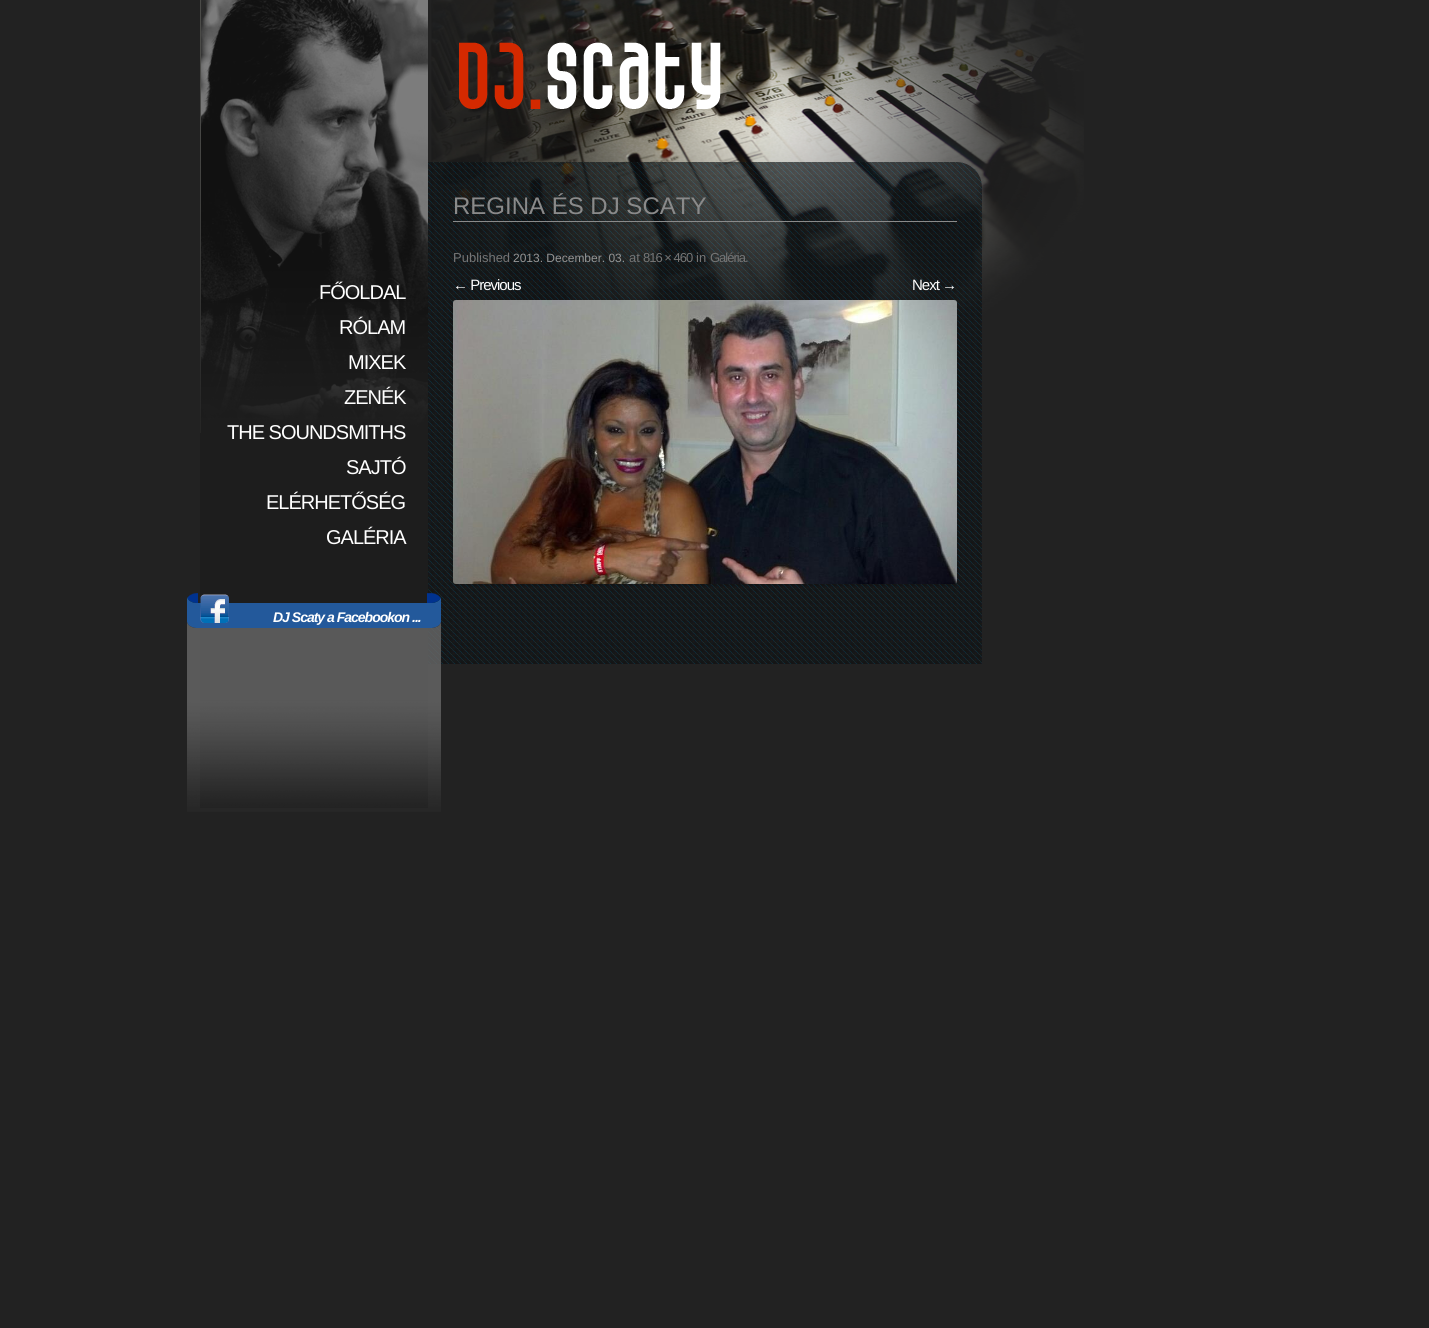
import math
import cairo


def write_spaced(ctx, x, y, s, letter, word):
	ctx.move_to(x, y)
	for ch in s:
		ctx.show_text(ch)
		ctx.rel_move_to(letter + word * (ch == ' '), 0)

def round_path(ctx, x, y, w, h, r):
	ctx.new_sub_path()
	for i, (u, v) in enumerate([(x + w - r, y + h - r), (x + r, y + h - r), (x + r, y + r), (x + w - r, y + r)]):
		ctx.arc(u, v, r, i * math.pi / 2, (i + 1) * math.pi / 2)
	ctx.close_path()

def blur_box(ctx, x, y, w, h, r, blur, alpha):
	ctx.push_group_with_content(cairo.CONTENT_ALPHA)
	ctx.set_operator(cairo.OPERATOR_SOURCE)
	for i in range(15, -16, -2):
		e = blur * i / 6
		if min(w, h) + 2 * e > 0:
			ctx.set_source_rgba(0, 0, 0, alpha * math.erfc((i - 1) / 8.5) / 2)
			round_path(ctx, x - e, y - e, w + 2 * e, h + 2 * e, max(0, min(r + e + blur * .6, min(w, h) / 2 + e)))
			ctx.fill()
	ctx.mask(ctx.pop_group())

def paste(ctx, path, x, y, w, h):
	ctx.save()
	ctx.set_source_surface(cairo.ImageSurface.create_from_png(path), x, y)
	ctx.rectangle(x, y, w, h)
	ctx.fill()
	ctx.restore()

def draw(ctx):
	ctx.set_source_rgb(0.133, 0.133, 0.133)
	ctx.paint()
	paste(ctx, 'media/1.png', 431, 0, 653, 318)
	paste(ctx, 'media/2.png', 459, 42, 262, 67)
	paste(ctx, 'media/3.png', 428, 162, 554, 502)
	ctx.set_source_rgb(0.541, 0.541, 0.541)
	ctx.rectangle(453, 221, 504, 1)
	ctx.fill()
	ctx.select_font_face('Liberation Sans')
	ctx.set_font_size(24)
	ctx.move_to(453, 214)
	ctx.show_text('REGINA ÉS DJ SCATY')
	ctx.set_font_size(13)
	ctx.set_source_rgb(0.459, 0.459, 0.459)
	ctx.move_to(453, 262)
	ctx.show_text('Published')
	ctx.set_font_size(12)
	ctx.set_source_rgb(0.584, 0.584, 0.584)
	ctx.move_to(513, 262)
	ctx.show_text('2013. December. 03.')
	ctx.set_font_size(13)
	ctx.set_source_rgb(0.459, 0.459, 0.459)
	ctx.move_to(629, 262)
	ctx.show_text('at')
	write_spaced(ctx, 643, 262, '816 × 460', -1, 0)
	ctx.move_to(696, 262)
	ctx.show_text('in')
	write_spaced(ctx, 710, 262, 'Galéria', -1, 0)
	ctx.move_to(745, 262)
	ctx.show_text('.')
	ctx.set_font_size(15)
	ctx.set_source_rgb(1, 1, 1)
	write_spaced(ctx, 453, 290, '← Previous', -1, 0)
	write_spaced(ctx, 912, 290, 'Next →', -1, 0)
	ctx.set_source_rgb(0, 0, 0)
	blur_box(ctx, 453, 301, 504, 284, 3, 2, 0.2)
	paste(ctx, 'media/4.png', 453, 300, 504, 284)
	ctx.set_source_rgb(0.114, 0.114, 0.114)
	ctx.rectangle(200, 0, 228, 808)
	ctx.fill()
	paste(ctx, 'media/5.png', 200, 0, 228, 433)
	ctx.set_font_size(20)
	ctx.set_source_rgb(1, 1, 1)
	for x, y, s in [
		(319, 299, 'FŐOLDAL'),
		(339, 334, 'RÓLAM'),
		(348, 369, 'MIXEK'),
		(344, 404, 'ZENÉK'),
		(227, 439, 'THE SOUNDSMITHS'),
		(346, 474, 'SAJTÓ'),
		(266, 509, 'ELÉRHETŐSÉG'),
		(326, 544, 'GALÉRIA'),
	]:
		write_spaced(ctx, x, y, s, -1, 0)
	paste(ctx, 'media/6.png', 187, 593, 254, 35)
	paste(ctx, 'media/7.png', 200, 594, 29, 29)
	ctx.select_font_face('Liberation Sans', cairo.FONT_SLANT_ITALIC, cairo.FONT_WEIGHT_BOLD)
	ctx.set_font_size(14)
	write_spaced(ctx, 273, 622, 'DJ Scaty a Facebookon ...', -1, 0)
	paste(ctx, 'media/8.png', 187, 622, 254, 190)


surface = cairo.ImageSurface(cairo.FORMAT_RGB24, 1429, 1328)
ctx = cairo.Context(surface)
options = cairo.FontOptions()
options.set_hint_metrics(cairo.HINT_METRICS_OFF)
options.set_hint_style(cairo.HINT_STYLE_NONE)
ctx.set_font_options(options)
ctx.set_miter_limit(4)
draw(ctx)
surface.write_to_png('image.png')
